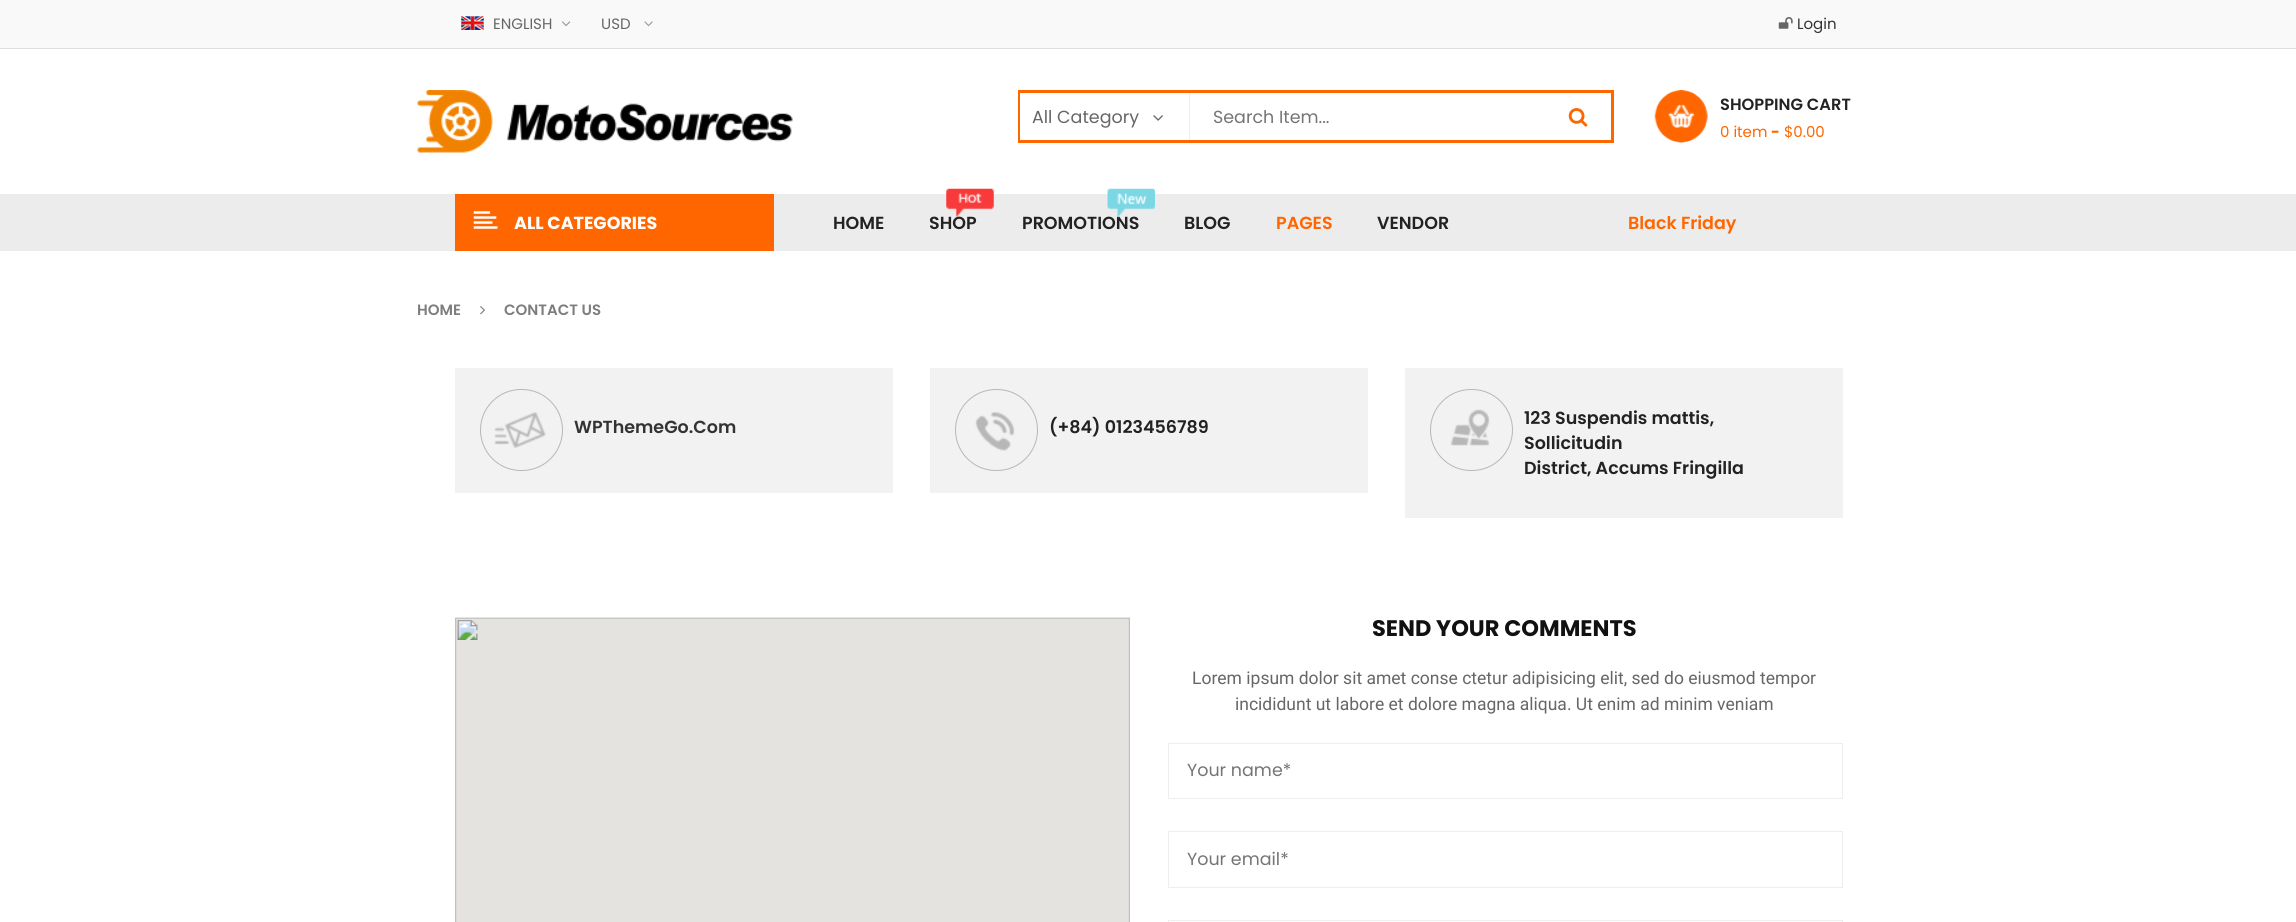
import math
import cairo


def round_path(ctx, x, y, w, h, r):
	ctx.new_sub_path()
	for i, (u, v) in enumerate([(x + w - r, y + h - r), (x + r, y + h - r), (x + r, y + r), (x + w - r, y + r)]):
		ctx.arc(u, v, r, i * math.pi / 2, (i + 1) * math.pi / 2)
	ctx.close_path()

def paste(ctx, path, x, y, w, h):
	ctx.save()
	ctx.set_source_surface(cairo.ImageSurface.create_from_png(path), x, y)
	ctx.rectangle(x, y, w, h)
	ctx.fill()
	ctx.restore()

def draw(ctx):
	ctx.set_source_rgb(1, 1, 1)
	ctx.paint()
	ctx.set_source_rgb(0.973, 0.973, 0.973)
	ctx.rectangle(0, 0, 2296, 48)
	ctx.fill()
	ctx.set_source_rgb(0.867, 0.867, 0.867)
	ctx.rectangle(0, 48, 2296, 1)
	ctx.fill()
	paste(ctx, 'media/1.png', 461, 16, 23, 14)
	ctx.select_font_face('Poppins')
	ctx.set_font_size(15)
	ctx.set_source_rgb(0.4, 0.4, 0.4)
	ctx.move_to(493, 29)
	ctx.show_text('ENGLISH')
	paste(ctx, 'media/2.png', 562, 21, 9, 6)
	ctx.move_to(601, 29)
	ctx.show_text('USD')
	paste(ctx, 'media/3.png', 644, 21, 9, 6)
	paste(ctx, 'media/4.png', 1778, 17, 15, 12)
	ctx.set_source_rgb(0.2, 0.2, 0.2)
	ctx.move_to(1797, 29)
	ctx.show_text('Login')
	paste(ctx, 'media/5.png', 417, 90, 376, 63)
	ctx.rectangle(1019.5, 91.5, 593, 50)
	ctx.set_source_rgb(1, 0.4, 0)
	ctx.set_line_width(3)
	ctx.stroke()
	ctx.set_source_rgb(1, 1, 1)
	ctx.rectangle(1020, 93, 1, 47)
	ctx.fill()
	ctx.set_source_rgb(0.933, 0.933, 0.933)
	ctx.rectangle(1189, 93, 1, 47)
	ctx.fill()
	ctx.set_font_size(17.5)
	ctx.set_source_rgb(0.4, 0.4, 0.4)
	ctx.move_to(1032, 123)
	ctx.show_text('All Category')
	paste(ctx, 'media/6.png', 1153, 115, 10, 6)
	ctx.set_source_rgb(0.459, 0.459, 0.459)
	ctx.move_to(1213, 123)
	ctx.show_text('Search Item...')
	paste(ctx, 'media/7.png', 1568, 108, 20, 19)
	paste(ctx, 'media/8.png', 1654, 90, 54, 53)
	ctx.select_font_face('Poppins SemiBold')
	ctx.set_font_size(16.25)
	ctx.set_source_rgb(0.133, 0.133, 0.133)
	ctx.move_to(1720, 110)
	ctx.show_text('SHOPPING CART')
	ctx.select_font_face('Poppins')
	ctx.set_font_size(15)
	ctx.set_source_rgb(1, 0.4, 0)
	ctx.move_to(1720, 137)
	ctx.show_text('0 item')
	ctx.select_font_face('Poppins', cairo.FONT_SLANT_NORMAL, cairo.FONT_WEIGHT_BOLD)
	ctx.move_to(1771, 137)
	ctx.show_text('-')
	ctx.select_font_face('Poppins')
	ctx.move_to(1784, 137)
	ctx.show_text('$0.00')
	ctx.set_source_rgb(0.922, 0.922, 0.922)
	ctx.rectangle(0, 194, 2296, 57)
	ctx.fill()
	ctx.set_source_rgb(1, 0.4, 0)
	ctx.rectangle(455, 194, 319, 57)
	ctx.fill()
	paste(ctx, 'media/9.png', 473, 211, 25, 18)
	ctx.select_font_face('Poppins', cairo.FONT_SLANT_NORMAL, cairo.FONT_WEIGHT_BOLD)
	ctx.set_font_size(17.5)
	ctx.set_source_rgb(1, 1, 1)
	ctx.move_to(514, 229)
	ctx.show_text('ALL CATEGORIES')
	ctx.select_font_face('Poppins SemiBold')
	ctx.set_source_rgb(0.133, 0.133, 0.133)
	ctx.move_to(833, 229)
	ctx.show_text('HOME')
	ctx.move_to(929, 229)
	ctx.show_text('SHOP')
	paste(ctx, 'media/10.png', 946, 188, 48, 30)
	ctx.move_to(1022, 229)
	ctx.show_text('PROMOTIONS')
	paste(ctx, 'media/11.png', 1107, 188, 48, 30)
	ctx.move_to(1184, 229)
	ctx.show_text('BLOG')
	ctx.set_source_rgb(1, 0.4, 0)
	ctx.move_to(1276, 229)
	ctx.show_text('PAGES')
	ctx.set_source_rgb(0.133, 0.133, 0.133)
	ctx.move_to(1377, 229)
	ctx.show_text('VENDOR')
	ctx.set_source_rgb(1, 0.4, 0)
	ctx.move_to(1628, 229)
	ctx.show_text('Black Friday')
	ctx.set_font_size(15)
	ctx.set_source_rgb(0.49, 0.49, 0.49)
	ctx.move_to(417, 315)
	ctx.show_text('HOME')
	paste(ctx, 'media/12.png', 480, 306, 5, 9)
	ctx.move_to(504, 315)
	ctx.show_text('CONTACT US')
	ctx.set_source_rgb(0.949, 0.949, 0.949)
	ctx.rectangle(455, 368, 438, 125)
	ctx.fill()
	paste(ctx, 'media/13.png', 494, 412, 52, 36)
	round_path(ctx, 480.5, 389.5, 82, 81, 40.5)
	ctx.set_source_rgb(0.718, 0.718, 0.718)
	ctx.set_line_width(1)
	ctx.stroke()
	ctx.set_font_size(17.5)
	ctx.set_source_rgb(0.2, 0.2, 0.2)
	ctx.move_to(574, 433)
	ctx.show_text('WPThemeGo.Com')
	ctx.set_source_rgb(0.949, 0.949, 0.949)
	ctx.rectangle(930, 368, 438, 125)
	ctx.fill()
	paste(ctx, 'media/14.png', 975, 411, 40, 40)
	round_path(ctx, 955.5, 389.5, 82, 81, 40.5)
	ctx.set_source_rgb(0.718, 0.718, 0.718)
	ctx.stroke()
	ctx.set_source_rgb(0.133, 0.133, 0.133)
	ctx.move_to(1049, 433)
	ctx.show_text('(+84) 0123456789')
	ctx.set_source_rgb(0.949, 0.949, 0.949)
	ctx.rectangle(1405, 368, 438, 150)
	ctx.fill()
	paste(ctx, 'media/15.png', 1450, 409, 40, 37)
	round_path(ctx, 1430.5, 389.5, 82, 81, 40.5)
	ctx.set_source_rgb(0.718, 0.718, 0.718)
	ctx.stroke()
	ctx.set_source_rgb(0.133, 0.133, 0.133)
	for x, y, s in [
		(1524, 424, '123 Suspendis mattis,'),
		(1524, 449, 'Sollicitudin'),
		(1524, 474, 'District, Accums Fringilla'),
	]:
		ctx.move_to(x, y)
		ctx.show_text(s)
	paste(ctx, 'media/16.png', 455, 617, 675, 305)
	ctx.select_font_face('Poppins', cairo.FONT_SLANT_NORMAL, cairo.FONT_WEIGHT_BOLD)
	ctx.set_font_size(22.5)
	ctx.set_source_rgb(0.067, 0.067, 0.067)
	ctx.move_to(1372, 636)
	ctx.show_text('SEND YOUR COMMENTS')
	ctx.select_font_face('Roboto')
	ctx.set_font_size(17.5)
	ctx.set_source_rgb(0.4, 0.4, 0.4)
	ctx.move_to(1192, 684)
	ctx.show_text('Lorem ipsum dolor sit amet conse ctetur adipisicing elit, sed do eiusmod tempor')
	ctx.move_to(1235, 710)
	ctx.show_text('incididunt ut labore et dolore magna aliqua. Ut enim ad minim veniam')
	ctx.rectangle(1168.5, 743.5, 674, 55)
	ctx.set_source_rgb(0.933, 0.933, 0.933)
	ctx.stroke()
	ctx.select_font_face('Poppins')
	ctx.set_source_rgb(0.459, 0.459, 0.459)
	ctx.move_to(1187, 776)
	ctx.show_text('Your name*')
	ctx.rectangle(1168.5, 831.5, 674, 56)
	ctx.set_source_rgb(0.933, 0.933, 0.933)
	ctx.stroke()
	ctx.set_source_rgb(0.459, 0.459, 0.459)
	ctx.move_to(1187, 865)
	ctx.show_text('Your email*')
	ctx.rectangle(1168.5, 920.5, 674, 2)
	ctx.set_source_rgb(0.933, 0.933, 0.933)
	ctx.stroke()


surface = cairo.ImageSurface(cairo.FORMAT_RGB24, 2296, 922)
ctx = cairo.Context(surface)
options = cairo.FontOptions()
options.set_hint_metrics(cairo.HINT_METRICS_OFF)
options.set_hint_style(cairo.HINT_STYLE_NONE)
ctx.set_font_options(options)
ctx.set_miter_limit(4)
draw(ctx)
surface.write_to_png('image.png')
